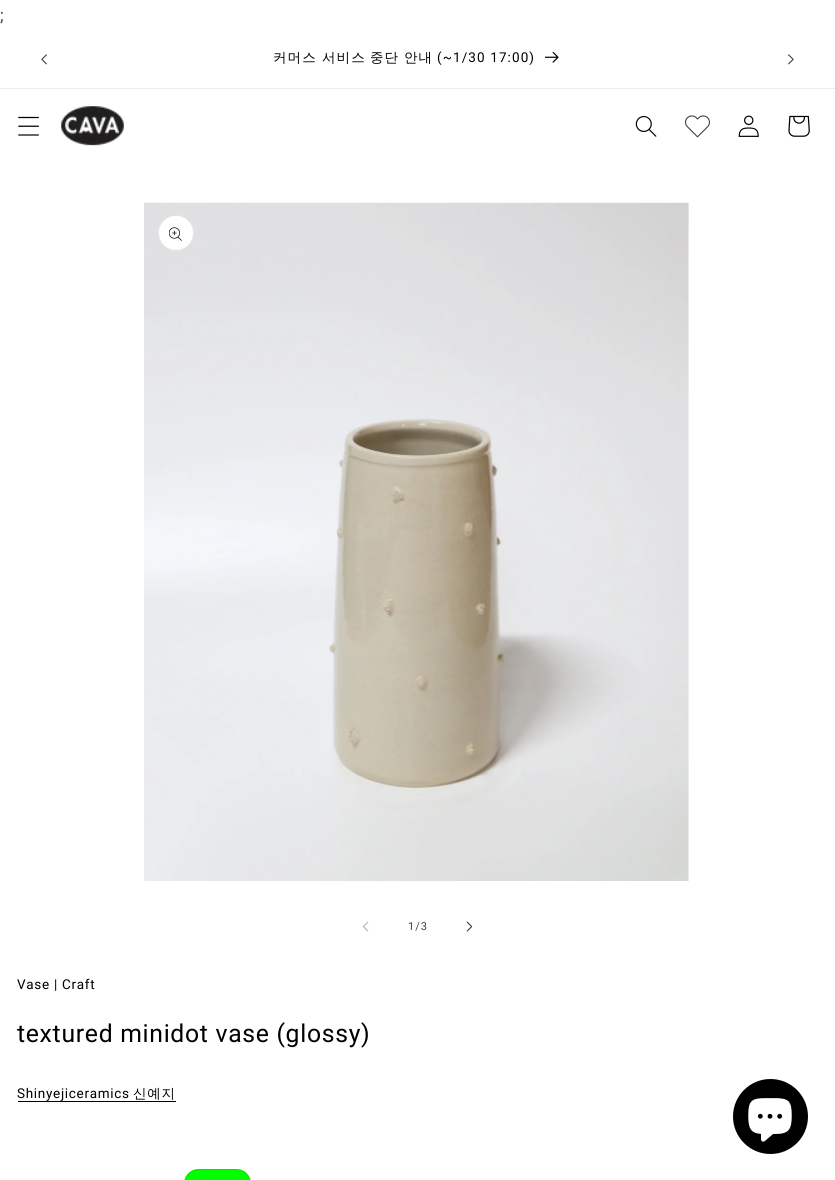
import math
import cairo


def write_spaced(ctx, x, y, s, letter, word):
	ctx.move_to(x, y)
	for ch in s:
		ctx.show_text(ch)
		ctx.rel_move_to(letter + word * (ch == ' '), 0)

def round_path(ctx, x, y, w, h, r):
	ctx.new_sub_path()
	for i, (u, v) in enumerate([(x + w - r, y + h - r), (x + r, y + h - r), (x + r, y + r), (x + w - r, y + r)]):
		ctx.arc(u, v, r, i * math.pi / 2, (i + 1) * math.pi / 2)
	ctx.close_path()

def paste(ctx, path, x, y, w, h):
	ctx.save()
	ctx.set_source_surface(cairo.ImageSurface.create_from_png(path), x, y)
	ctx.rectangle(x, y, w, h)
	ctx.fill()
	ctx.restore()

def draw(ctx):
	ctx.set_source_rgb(1, 1, 1)
	ctx.paint()
	ctx.select_font_face('Roboto')
	ctx.set_font_size(17)
	ctx.set_source_rgb(0.251, 0.251, 0.251)
	write_spaced(ctx, 0, 21, ';', 0.7, 0)
	ctx.set_source_rgb(0.922, 0.922, 0.922)
	ctx.rectangle(0, 88, 835, 1)
	ctx.fill()
	paste(ctx, 'media/1.png', 41, 54, 6, 11)
	ctx.select_font_face('WenQuanYi Zen Hei Medium')
	ctx.set_font_size(13.5)
	ctx.set_source_rgb(0, 0, 0)
	for x, y, s in [
		(273, 62, '커머스'),
		(322, 62, '서비스'),
		(370, 62, '중단'),
		(404, 62, '안내'),
	]:
		write_spaced(ctx, x, y, s, 1.1, 0)
	ctx.select_font_face('Roboto')
	write_spaced(ctx, 437, 62, '(~1/30 17:00)', 1.1, 0)
	paste(ctx, 'media/2.png', 545, 51, 14, 12)
	paste(ctx, 'media/3.png', 788, 54, 6, 11)
	paste(ctx, 'media/4.png', 18, 116, 21, 20)
	paste(ctx, 'media/5.png', 61, 106, 63, 40)
	paste(ctx, 'media/6.png', 635, 116, 22, 21)
	paste(ctx, 'media/7.png', 685, 115, 25, 23)
	paste(ctx, 'media/8.png', 738, 115, 21, 22)
	paste(ctx, 'media/9.png', 788, 115, 22, 22)
	paste(ctx, 'media/10.png', 144, 202, 545, 679)
	ctx.set_source_rgb(1, 1, 1)
	ctx.arc(176, 233, 18, 0, 2 * math.pi)
	ctx.fill()
	ctx.arc(176, 233, 17.5, 0, 2 * math.pi)
	ctx.set_source_rgba(0, 0, 0, 0.1)
	ctx.set_line_width(1)
	ctx.stroke()
	paste(ctx, 'media/11.png', 169, 227, 13, 14)
	paste(ctx, 'media/12.png', 362, 921, 7, 11)
	ctx.set_font_size(11)
	ctx.set_source_rgb(0.251, 0.251, 0.251)
	write_spaced(ctx, 408, 930, '1/3', 1, 0)
	paste(ctx, 'media/13.png', 466, 921, 7, 11)
	ctx.set_font_size(13.5)
	ctx.set_source_rgb(0, 0, 0)
	write_spaced(ctx, 17, 989, 'Vase | Craft', 0.7, 0)
	ctx.set_font_size(24.75)
	write_spaced(ctx, 17, 1042, 'textured minidot vase (glossy)', 0.7, 0)
	ctx.set_font_size(13.5)
	write_spaced(ctx, 17, 1098, 'Shinyejiceramics', 0.7, 0)
	ctx.rectangle(18, 1101, 158, 1)
	ctx.fill()
	ctx.select_font_face('WenQuanYi Zen Hei Medium')
	write_spaced(ctx, 133, 1098, '신예지', 0.7, 0)
	ctx.set_source_rgb(0, 1, 0)
	round_path(ctx, 184, 1169, 67, 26, 14.5)
	ctx.fill()
	round_path(ctx, 184.5, 1169.5, 66, 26, 14)
	ctx.set_source_rgba(0.071, 0.071, 0.071, 0.1)
	ctx.stroke()
	ctx.set_source_rgb(0, 0, 0)
	ctx.arc(770.5, 1116.5, 37.5, 0, 2 * math.pi)
	ctx.fill()
	paste(ctx, 'media/14.png', 748, 1098, 44, 44)


surface = cairo.ImageSurface(cairo.FORMAT_RGB24, 835, 1180)
ctx = cairo.Context(surface)
options = cairo.FontOptions()
options.set_hint_metrics(cairo.HINT_METRICS_OFF)
options.set_hint_style(cairo.HINT_STYLE_NONE)
ctx.set_font_options(options)
ctx.set_miter_limit(4)
draw(ctx)
surface.write_to_png('image.png')
